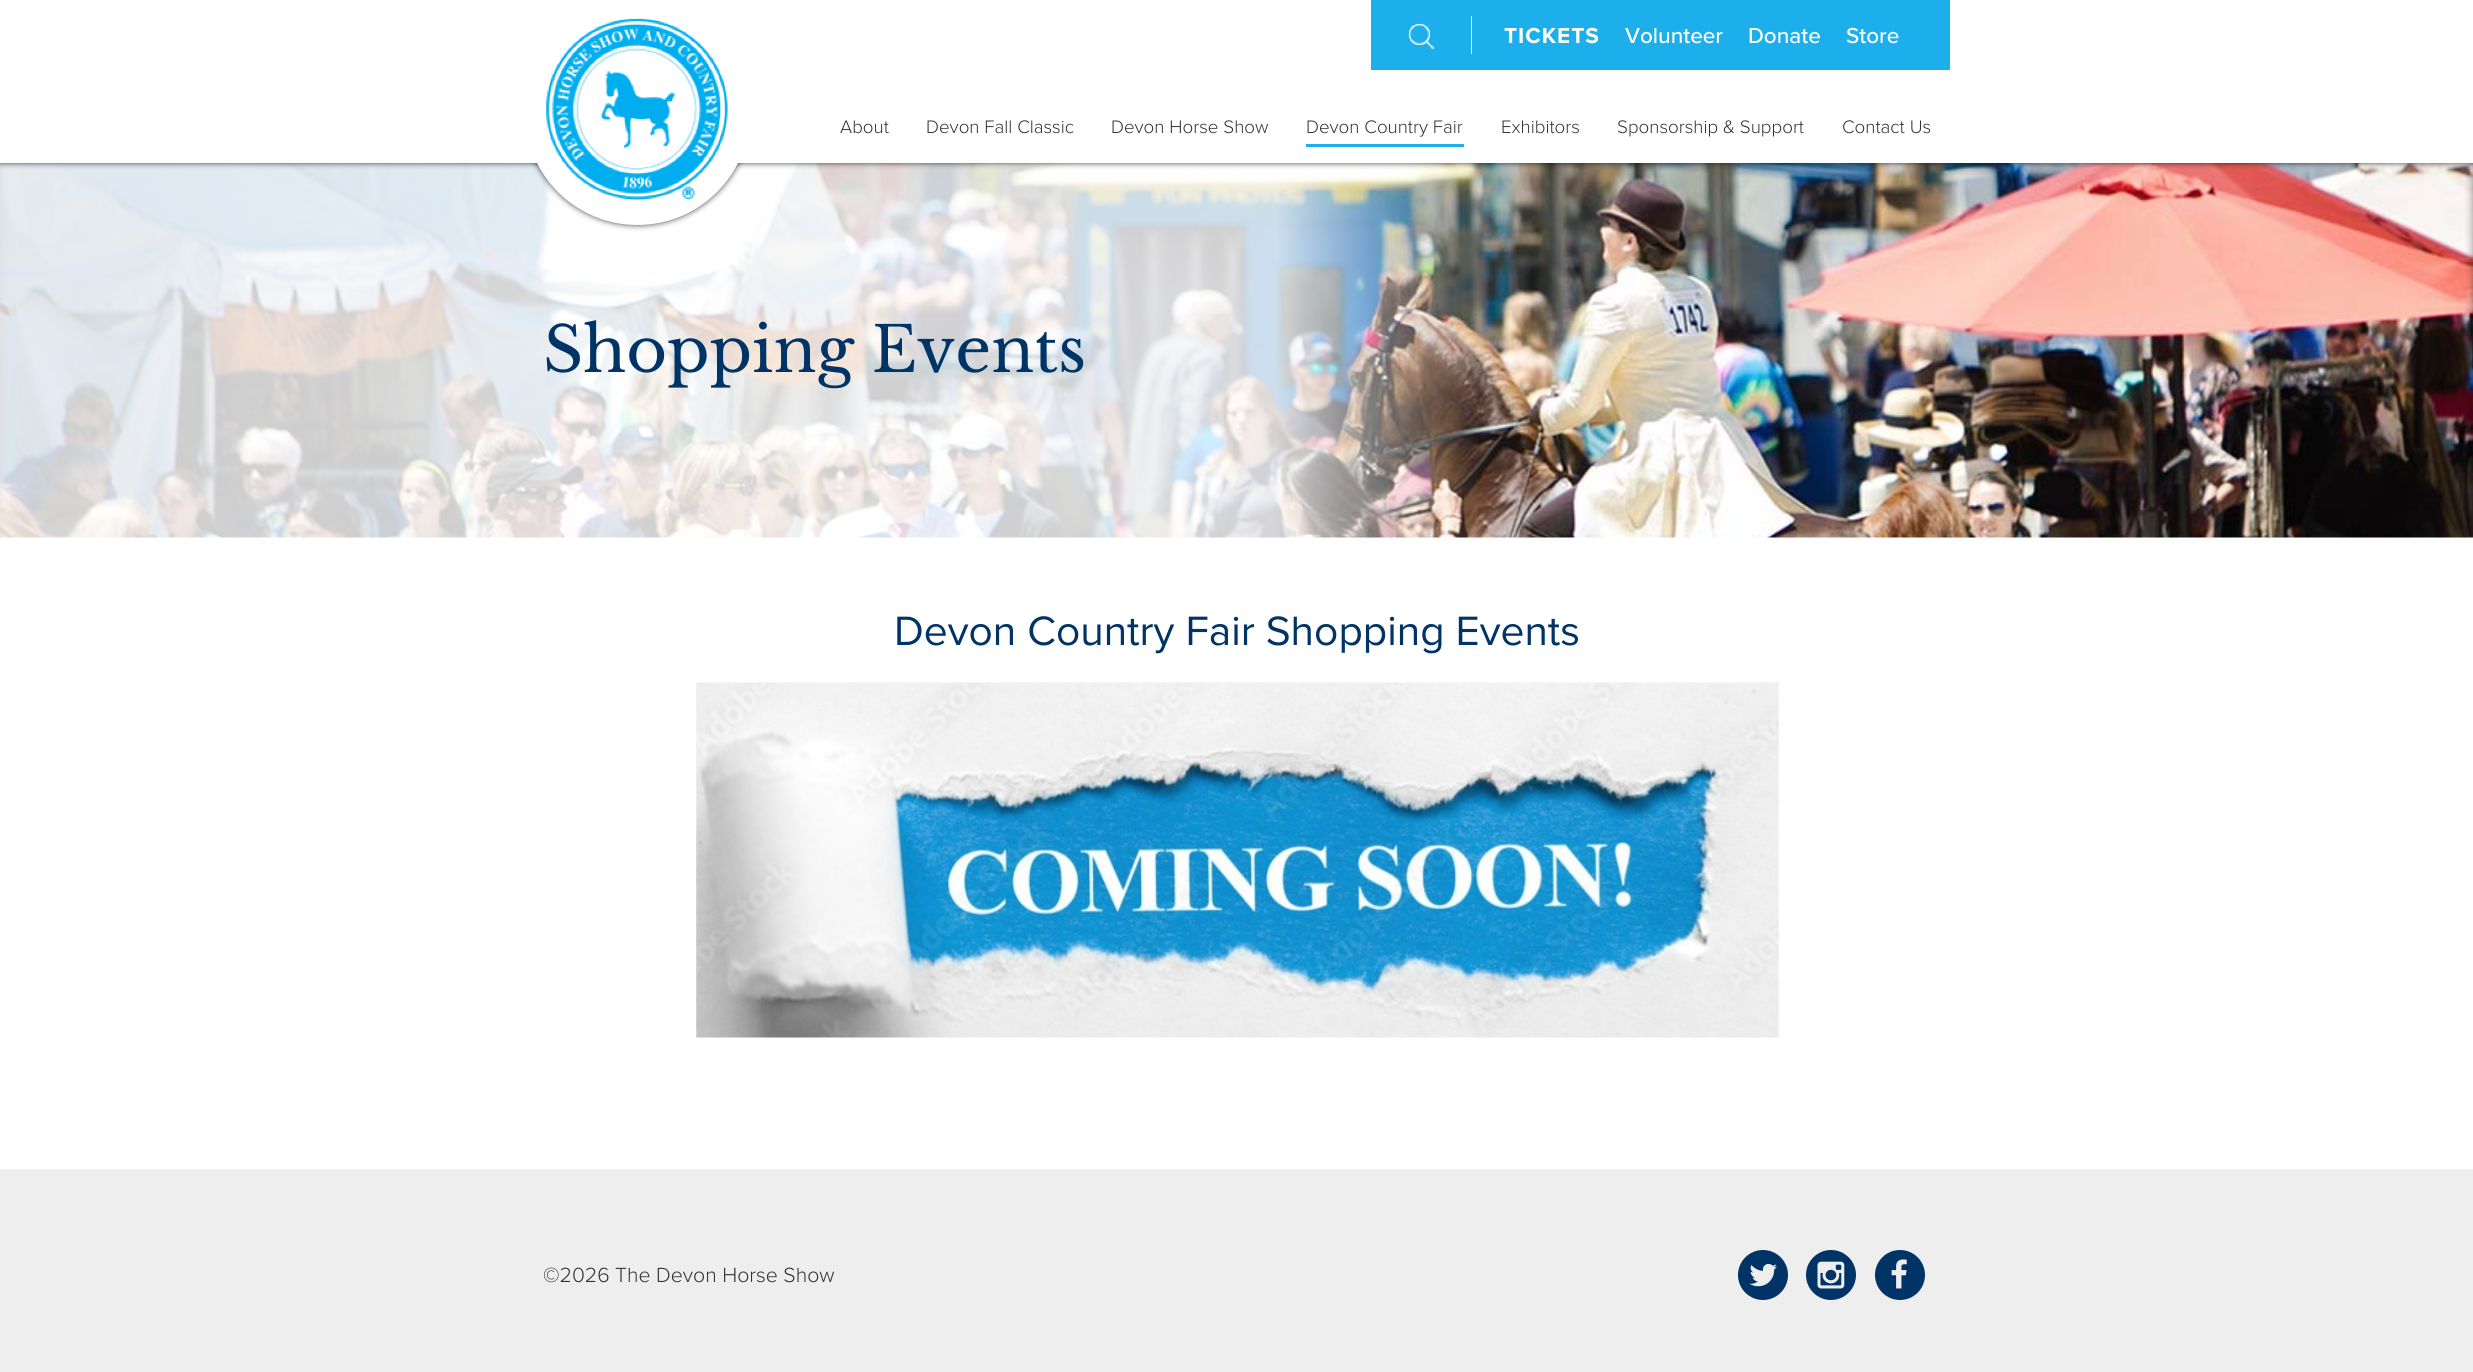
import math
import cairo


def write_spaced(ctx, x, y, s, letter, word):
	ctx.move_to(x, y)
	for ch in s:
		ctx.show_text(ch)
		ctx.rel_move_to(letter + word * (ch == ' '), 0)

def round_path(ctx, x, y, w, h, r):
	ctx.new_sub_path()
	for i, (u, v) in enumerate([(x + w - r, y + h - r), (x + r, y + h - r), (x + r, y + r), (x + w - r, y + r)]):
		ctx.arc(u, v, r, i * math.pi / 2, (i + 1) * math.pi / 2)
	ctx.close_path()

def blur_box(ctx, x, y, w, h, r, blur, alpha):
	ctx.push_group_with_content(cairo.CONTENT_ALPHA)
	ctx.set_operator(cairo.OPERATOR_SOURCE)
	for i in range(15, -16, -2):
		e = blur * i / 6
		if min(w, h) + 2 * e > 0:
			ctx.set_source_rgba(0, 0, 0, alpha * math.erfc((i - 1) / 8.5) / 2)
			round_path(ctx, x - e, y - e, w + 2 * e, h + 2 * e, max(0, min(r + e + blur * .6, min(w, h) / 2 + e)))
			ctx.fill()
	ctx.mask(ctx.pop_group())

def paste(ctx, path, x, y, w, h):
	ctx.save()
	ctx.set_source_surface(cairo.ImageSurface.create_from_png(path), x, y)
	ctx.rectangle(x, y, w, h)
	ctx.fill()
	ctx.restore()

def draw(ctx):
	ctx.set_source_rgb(1, 1, 1)
	ctx.paint()
	paste(ctx, 'media/3.png', 0, 163, 2473, 375)
	gradient = cairo.LinearGradient(0, 350, 1484, 350)
	gradient.add_color_stop_rgba(0, 1, 1, 1, 0.8)
	gradient.add_color_stop_rgba(0.86, 1, 1, 1, 0.8)
	gradient.add_color_stop_rgba(1, 1, 1, 1, 0)
	ctx.set_source(gradient)
	ctx.rectangle(0, 163, 1478, 375)
	ctx.fill()
	ctx.set_source_rgb(0, 0, 0)
	blur_box(ctx, 0, 0, 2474, 163, 0, 3, 0.75)
	ctx.set_source_rgb(1, 1, 1)
	ctx.rectangle(0, 0, 2473, 163)
	ctx.fill()
	ctx.set_source_rgb(0, 0, 0)
	blur_box(ctx, 525, 0, 225, 225, 112.5, 3, 0.75)
	ctx.set_source_rgb(1, 1, 1)
	ctx.rectangle(518, 0, 239, 163)
	ctx.fill()
	ctx.arc(637.5, 112.5, 112.5, 0, 2 * math.pi)
	ctx.fill()
	paste(ctx, 'media/1.png', 546, 18, 182, 182)
	ctx.set_source_rgb(0.114, 0.682, 0.922)
	ctx.rectangle(1371, 0, 579, 70)
	ctx.fill()
	ctx.set_source_rgb(1, 1, 1)
	ctx.rectangle(1471, 16, 1, 38)
	ctx.fill()
	paste(ctx, 'media/2.png', 1408, 23, 26, 26)
	ctx.select_font_face('Proxima Nova', cairo.FONT_SLANT_NORMAL, cairo.FONT_WEIGHT_BOLD)
	ctx.set_font_size(22.5)
	write_spaced(ctx, 1504, 43, 'TICKETS', 1, 0)
	ctx.select_font_face('Proxima Nova Medium')
	for x, y, s in [
		(1625, 43, 'Volunteer'),
		(1748, 43, 'Donate'),
		(1846, 43, 'Store'),
	]:
		ctx.move_to(x, y)
		ctx.show_text(s)
	ctx.select_font_face('Proxima Nova Light')
	ctx.set_font_size(18.75)
	ctx.set_source_rgb(0.2, 0.2, 0.2)
	for x, y, s in [
		(840, 133, 'About'),
		(926, 133, 'Devon Fall Classic'),
		(1111, 133, 'Devon Horse Show'),
		(1306, 133, 'Devon Country Fair'),
	]:
		ctx.move_to(x, y)
		ctx.show_text(s)
	ctx.set_source_rgb(0.114, 0.682, 0.922)
	ctx.rectangle(1306, 144, 158, 3)
	ctx.fill()
	ctx.set_source_rgb(0.2, 0.2, 0.2)
	for x, y, s in [
		(1501, 133, 'Exhibitors'),
		(1617, 133, 'Sponsorship & Support'),
		(1842, 133, 'Contact Us'),
	]:
		ctx.move_to(x, y)
		ctx.show_text(s)
	ctx.select_font_face('Libre Baskerville')
	ctx.set_font_size(62.5)
	ctx.set_source_rgb(0, 0.204, 0.404)
	ctx.move_to(543, 372)
	ctx.show_text('Shopping Events')
	ctx.select_font_face('Proxima Nova')
	ctx.set_font_size(42.5)
	ctx.move_to(894, 645)
	ctx.show_text('Devon Country Fair Shopping Events')
	paste(ctx, 'media/4.png', 696, 682, 1083, 356)
	ctx.set_source_rgb(0.933, 0.933, 0.933)
	ctx.rectangle(0, 1169, 2473, 203)
	ctx.fill()
	ctx.select_font_face('Proxima Nova Light')
	ctx.set_font_size(21.25)
	ctx.set_source_rgb(0.2, 0.2, 0.2)
	ctx.move_to(543, 1282)
	ctx.show_text('©2026 The Devon Horse Show')
	ctx.set_source_rgb(0, 0.204, 0.404)
	ctx.new_path()
	ctx.arc(1763, 1275, 25, 0, 2 * math.pi)
	ctx.fill()
	paste(ctx, 'media/5.png', 1749, 1263, 28, 24)
	ctx.arc(1831, 1275, 25, 0, 2 * math.pi)
	ctx.fill()
	paste(ctx, 'media/6.png', 1817, 1261, 28, 28)
	ctx.arc(1900, 1275, 25, 0, 2 * math.pi)
	ctx.fill()
	paste(ctx, 'media/7.png', 1891, 1259, 16, 30)


surface = cairo.ImageSurface(cairo.FORMAT_RGB24, 2473, 1372)
ctx = cairo.Context(surface)
options = cairo.FontOptions()
options.set_hint_metrics(cairo.HINT_METRICS_OFF)
options.set_hint_style(cairo.HINT_STYLE_NONE)
ctx.set_font_options(options)
ctx.set_miter_limit(4)
draw(ctx)
surface.write_to_png('image.png')
